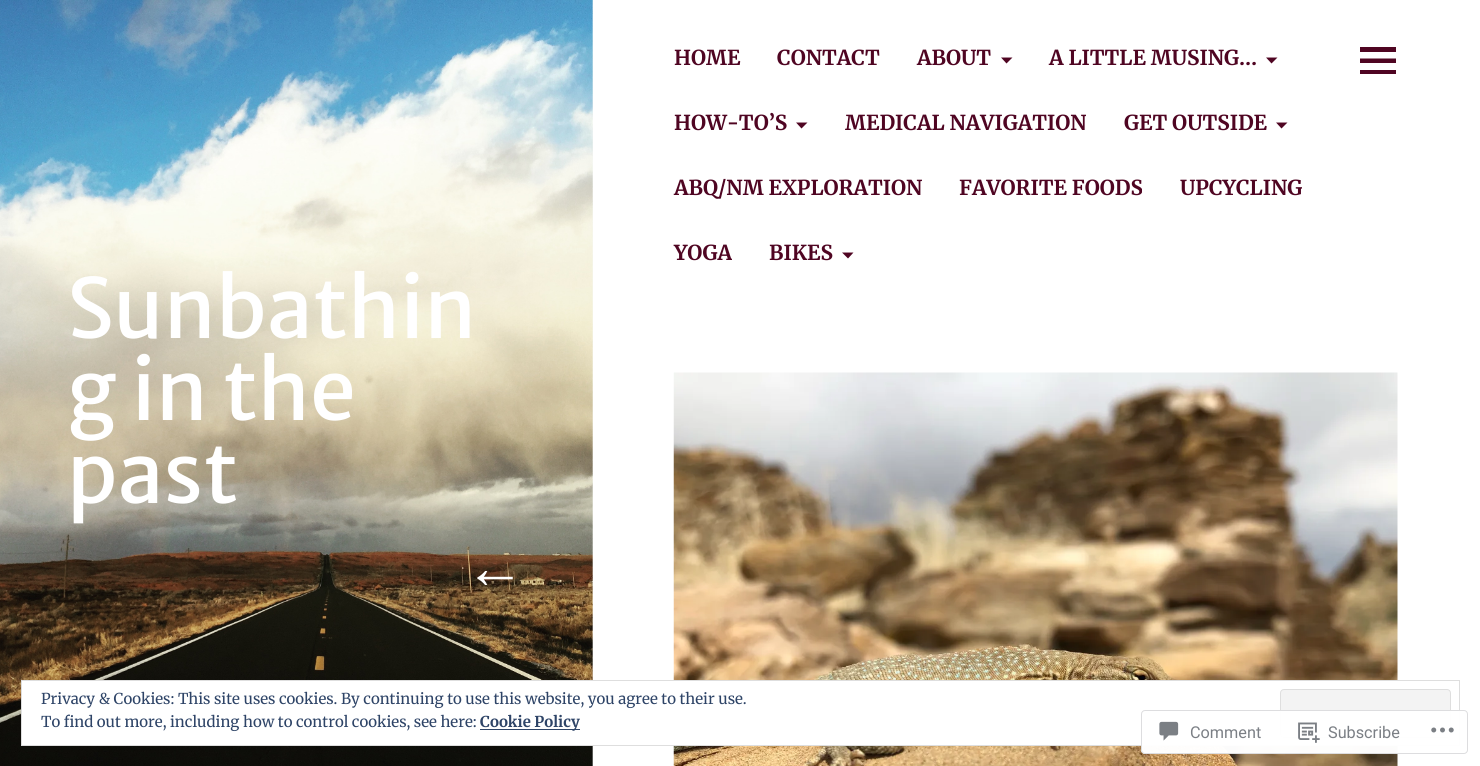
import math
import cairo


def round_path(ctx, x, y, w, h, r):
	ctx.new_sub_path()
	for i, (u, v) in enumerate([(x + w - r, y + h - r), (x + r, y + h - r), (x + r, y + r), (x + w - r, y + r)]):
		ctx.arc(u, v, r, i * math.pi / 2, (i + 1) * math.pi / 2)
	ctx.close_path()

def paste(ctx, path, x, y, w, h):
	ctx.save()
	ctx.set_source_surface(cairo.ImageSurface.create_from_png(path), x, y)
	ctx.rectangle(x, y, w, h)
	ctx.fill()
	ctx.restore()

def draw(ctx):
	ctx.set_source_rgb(1, 1, 1)
	ctx.paint()
	ctx.select_font_face('Merriweather', cairo.FONT_SLANT_NORMAL, cairo.FONT_WEIGHT_BOLD)
	ctx.set_font_size(20.6)
	ctx.set_source_rgb(0.31, 0.02, 0.133)
	for x, y, s in [
		(674, 65, 'HOME'),
		(777, 65, 'CONTACT'),
		(917, 65, 'ABOUT'),
	]:
		ctx.move_to(x, y)
		ctx.show_text(s)
	ctx.new_path()
	ctx.move_to(1001, 57.5)
	ctx.line_to(1012.5, 57.5)
	ctx.line_to(1006.5, 63.5)
	ctx.close_path()
	ctx.fill()
	ctx.move_to(1049, 65)
	ctx.show_text('A LITTLE MUSING…')
	ctx.new_path()
	ctx.move_to(1266, 57.5)
	ctx.line_to(1277.5, 57.5)
	ctx.line_to(1271.5, 63.5)
	ctx.close_path()
	ctx.fill()
	ctx.move_to(674, 130)
	ctx.show_text('HOW-TO’S')
	ctx.new_path()
	ctx.move_to(796, 122.5)
	ctx.line_to(807.5, 122.5)
	ctx.line_to(801.5, 128.5)
	ctx.close_path()
	ctx.fill()
	ctx.move_to(845, 130)
	ctx.show_text('MEDICAL NAVIGATION')
	ctx.move_to(1124, 130)
	ctx.show_text('GET OUTSIDE')
	ctx.new_path()
	ctx.move_to(1276, 122.5)
	ctx.line_to(1287.5, 122.5)
	ctx.line_to(1281.5, 128.5)
	ctx.close_path()
	ctx.fill()
	for x, y, s in [
		(674, 195, 'ABQ/NM EXPLORATION'),
		(959, 195, 'FAVORITE FOODS'),
		(1180, 195, 'UPCYCLING'),
		(674, 260, 'YOGA'),
		(769, 260, 'BIKES'),
	]:
		ctx.move_to(x, y)
		ctx.show_text(s)
	ctx.new_path()
	ctx.move_to(842, 252.5)
	ctx.line_to(853.5, 252.5)
	ctx.line_to(848, 258.5)
	ctx.close_path()
	ctx.fill()
	ctx.new_path()
	ctx.move_to(1360, 74)
	ctx.line_to(1360, 70)
	ctx.line_to(1396, 70)
	ctx.line_to(1396, 74)
	ctx.close_path()
	ctx.move_to(1360, 47)
	ctx.line_to(1396, 47)
	ctx.line_to(1396, 52)
	ctx.line_to(1360, 52)
	ctx.close_path()
	ctx.move_to(1360, 63)
	ctx.line_to(1360, 58.5)
	ctx.line_to(1396, 58.5)
	ctx.line_to(1396, 63)
	ctx.close_path()
	ctx.fill()
	paste(ctx, 'media/1.png', 673, 372, 725, 394)
	ctx.set_source_rgb(0.965, 0.969, 0.965)
	ctx.rectangle(592, 0, 1, 766)
	ctx.fill()
	paste(ctx, 'media/2.png', 0, 0, 593, 766)
	ctx.select_font_face('Merriweather Sans')
	ctx.set_font_size(82.5)
	ctx.set_source_rgb(1, 1, 1)
	for x, y, s in [
		(67, 338, 'Sunbathin'),
		(67, 420, 'g in the'),
		(67, 503, 'past'),
	]:
		ctx.move_to(x, y)
		ctx.show_text(s)
	ctx.select_font_face('Liberation Serif', cairo.FONT_SLANT_NORMAL, cairo.FONT_WEIGHT_BOLD)
	ctx.set_font_size(60)
	ctx.move_to(465, 588)
	ctx.show_text('←')
	ctx.rectangle(22, 681, 1376, 64)
	ctx.fill()
	ctx.rectangle(21.5, 680.5, 1438, 65)
	ctx.set_source_rgb(0.871, 0.871, 0.871)
	ctx.set_line_width(1)
	ctx.stroke()
	ctx.select_font_face('Merriweather')
	ctx.set_font_size(15)
	ctx.set_source_rgb(0.18, 0.267, 0.404)
	ctx.move_to(41, 704)
	ctx.show_text('Privacy & Cookies: This site uses cookies. By continuing to use this website, you agree to their use.')
	ctx.set_source_rgb(0.953, 0.953, 0.953)
	round_path(ctx, 1280.5, 689.5, 170, 48, 3.5)
	ctx.fill_preserve()
	ctx.set_source_rgb(0.871, 0.871, 0.871)
	ctx.stroke()
	ctx.set_source_rgb(0.18, 0.267, 0.404)
	ctx.move_to(41, 727)
	ctx.show_text('To find out more, including how to control cookies, see here:')
	ctx.rectangle(480, 729, 100, 1)
	ctx.fill()
	ctx.select_font_face('Merriweather', cairo.FONT_SLANT_NORMAL, cairo.FONT_WEIGHT_BOLD)
	ctx.move_to(480, 727)
	ctx.show_text('Cookie Policy')
	ctx.set_source_rgba(1, 1, 1, 0.98)
	round_path(ctx, 1141, 710, 327, 44, 4)
	ctx.fill()
	round_path(ctx, 1141.5, 710.5, 326, 43, 3.5)
	ctx.set_source_rgba(0.863, 0.863, 0.871, 0.98)
	ctx.stroke()
	paste(ctx, 'media/3.png', 1159, 721, 20, 20)
	ctx.select_font_face('Roboto')
	ctx.set_font_size(16.25)
	ctx.set_source_rgb(0.482, 0.498, 0.522)
	ctx.move_to(1190, 738)
	ctx.show_text('Comment')
	paste(ctx, 'media/4.png', 1298, 722, 22, 21)
	ctx.move_to(1328, 738)
	ctx.show_text('Subscribe')
	paste(ctx, 'media/5.png', 1431, 727, 23, 6)


surface = cairo.ImageSurface(cairo.FORMAT_RGB24, 1480, 766)
ctx = cairo.Context(surface)
options = cairo.FontOptions()
options.set_hint_metrics(cairo.HINT_METRICS_OFF)
options.set_hint_style(cairo.HINT_STYLE_NONE)
ctx.set_font_options(options)
ctx.set_miter_limit(4)
draw(ctx)
surface.write_to_png('image.png')
